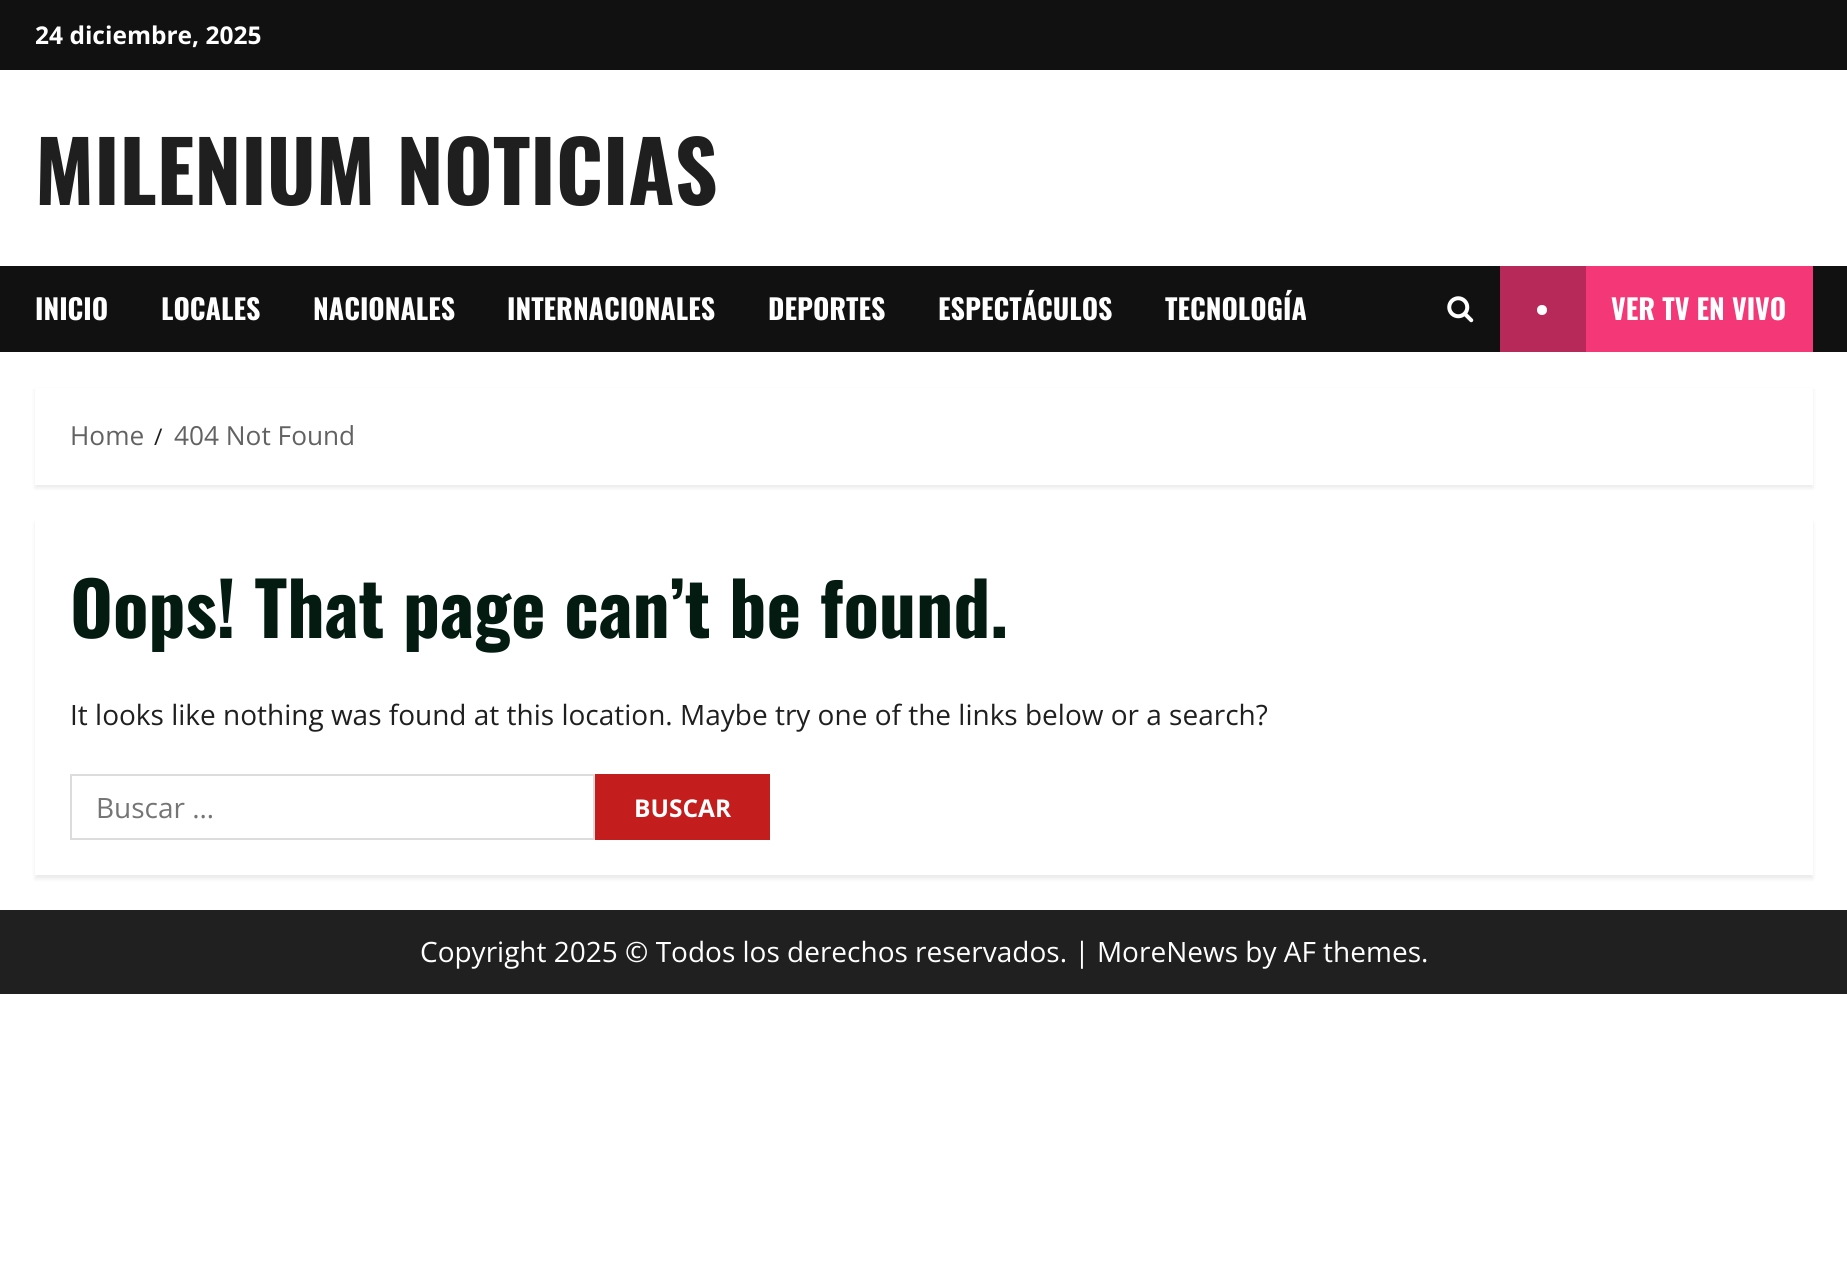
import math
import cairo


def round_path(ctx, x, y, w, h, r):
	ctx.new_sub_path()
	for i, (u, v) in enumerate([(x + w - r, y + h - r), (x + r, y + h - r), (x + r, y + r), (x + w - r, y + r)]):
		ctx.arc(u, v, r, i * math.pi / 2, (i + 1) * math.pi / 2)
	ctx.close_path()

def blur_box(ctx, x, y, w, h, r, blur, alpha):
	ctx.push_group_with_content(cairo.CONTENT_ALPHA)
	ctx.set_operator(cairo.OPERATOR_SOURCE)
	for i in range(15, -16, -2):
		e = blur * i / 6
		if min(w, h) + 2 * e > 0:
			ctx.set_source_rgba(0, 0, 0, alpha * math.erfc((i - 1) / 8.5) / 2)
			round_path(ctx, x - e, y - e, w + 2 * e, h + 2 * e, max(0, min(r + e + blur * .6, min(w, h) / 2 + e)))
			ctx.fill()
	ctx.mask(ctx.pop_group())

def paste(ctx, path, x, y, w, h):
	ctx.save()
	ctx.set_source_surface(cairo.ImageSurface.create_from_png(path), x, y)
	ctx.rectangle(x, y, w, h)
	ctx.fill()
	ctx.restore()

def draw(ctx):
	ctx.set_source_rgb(1, 1, 1)
	ctx.paint()
	ctx.set_source_rgb(0.067, 0.067, 0.067)
	ctx.rectangle(0, 0, 1847, 70)
	ctx.fill()
	ctx.select_font_face('Open Sans', cairo.FONT_SLANT_NORMAL, cairo.FONT_WEIGHT_BOLD)
	ctx.set_font_size(24.5)
	ctx.set_source_rgb(1, 1, 1)
	ctx.move_to(35, 44)
	ctx.show_text('24 diciembre, 2025')
	ctx.select_font_face('Oswald', cairo.FONT_SLANT_NORMAL, cairo.FONT_WEIGHT_BOLD)
	ctx.set_font_size(84)
	ctx.set_source_rgb(0.122, 0.122, 0.122)
	ctx.move_to(35, 205)
	ctx.show_text('MILENIUM NOTICIAS')
	ctx.set_source_rgb(0.067, 0.067, 0.067)
	ctx.rectangle(0, 266, 1847, 86)
	ctx.fill()
	ctx.set_font_size(28)
	ctx.set_source_rgb(1, 1, 1)
	for x, y, s in [
		(35, 320, 'INICIO'),
		(161, 320, 'LOCALES'),
		(313, 320, 'NACIONALES'),
		(507, 320, 'INTERNACIONALES'),
		(768, 320, 'DEPORTES'),
		(938, 320, 'ESPECTÁCULOS'),
		(1165, 320, 'TECNOLOGÍA'),
	]:
		ctx.move_to(x, y)
		ctx.show_text(s)
	paste(ctx, 'media/1.png', 1447, 296, 27, 27)
	ctx.set_source_rgb(0.957, 0.216, 0.463)
	ctx.rectangle(1586, 266, 227, 86)
	ctx.fill()
	ctx.set_source_rgb(0.718, 0.161, 0.349)
	ctx.rectangle(1500, 266, 86, 86)
	ctx.fill()
	ctx.set_source_rgb(1, 1, 1)
	ctx.arc(1542, 310, 5, 0, 2 * math.pi)
	ctx.fill()
	ctx.move_to(1611, 320)
	ctx.show_text('VER TV EN VIVO')
	ctx.set_source_rgb(0, 0, 0)
	blur_box(ctx, 35, 390, 1778, 98, 0, 2, 0.08)
	ctx.set_source_rgb(1, 1, 1)
	ctx.rectangle(35, 388, 1778, 97)
	ctx.fill()
	ctx.select_font_face('Open Sans')
	ctx.set_font_size(26.25)
	ctx.set_source_rgb(0.384, 0.384, 0.384)
	ctx.move_to(70, 445)
	ctx.show_text('Home')
	ctx.set_font_size(23)
	ctx.set_source_rgb(0.122, 0.122, 0.122)
	ctx.move_to(154, 445)
	ctx.show_text('/')
	ctx.set_font_size(26.25)
	ctx.set_source_rgb(0.384, 0.384, 0.384)
	ctx.move_to(174, 445)
	ctx.show_text('404 Not Found')
	ctx.save()
	ctx.set_fill_rule(cairo.FILL_RULE_EVEN_ODD)
	ctx.new_path()
	ctx.move_to(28, 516)
	ctx.line_to(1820, 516)
	ctx.line_to(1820, 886)
	ctx.line_to(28, 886)
	ctx.close_path()
	ctx.move_to(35, 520)
	ctx.line_to(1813, 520)
	ctx.line_to(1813, 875)
	ctx.line_to(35, 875)
	ctx.close_path()
	ctx.clip()
	ctx.set_source_rgb(0, 0, 0)
	blur_box(ctx, 35, 523, 1778, 356, 0, 2, 0.08)
	ctx.restore()
	ctx.select_font_face('Oswald', cairo.FONT_SLANT_NORMAL, cairo.FONT_WEIGHT_BOLD)
	ctx.set_font_size(73.5)
	ctx.set_source_rgb(0.012, 0.106, 0.067)
	ctx.move_to(70, 638)
	ctx.show_text('Oops! That page can’t be found.')
	ctx.select_font_face('Open Sans')
	ctx.set_font_size(28)
	ctx.set_source_rgb(0.122, 0.122, 0.122)
	ctx.move_to(70, 725)
	ctx.show_text('It looks like nothing was found at this location. Maybe try one of the links below or a search?')
	ctx.rectangle(71, 775, 523, 64)
	ctx.set_source_rgb(0.863, 0.863, 0.863)
	ctx.stroke()
	ctx.set_source_rgb(0.459, 0.459, 0.459)
	ctx.move_to(96, 818)
	ctx.show_text('Buscar …')
	ctx.set_source_rgb(0.769, 0.114, 0.114)
	ctx.rectangle(595, 774, 175, 66)
	ctx.fill()
	ctx.select_font_face('Open Sans', cairo.FONT_SLANT_NORMAL, cairo.FONT_WEIGHT_BOLD)
	ctx.set_font_size(24.5)
	ctx.set_source_rgb(1, 1, 1)
	ctx.move_to(634, 817)
	ctx.show_text('BUSCAR')
	ctx.set_source_rgb(0.125, 0.125, 0.125)
	ctx.rectangle(0, 910, 1847, 84)
	ctx.fill()
	ctx.select_font_face('Open Sans')
	ctx.set_font_size(28)
	ctx.set_source_rgb(1, 1, 1)
	ctx.move_to(420, 962)
	ctx.show_text('Copyright 2025 © Todos los derechos reservados. | MoreNews by AF themes.')


surface = cairo.ImageSurface(cairo.FORMAT_RGB24, 1847, 1268)
ctx = cairo.Context(surface)
options = cairo.FontOptions()
options.set_hint_metrics(cairo.HINT_METRICS_OFF)
options.set_hint_style(cairo.HINT_STYLE_NONE)
ctx.set_font_options(options)
ctx.set_miter_limit(4)
draw(ctx)
surface.write_to_png('image.png')
